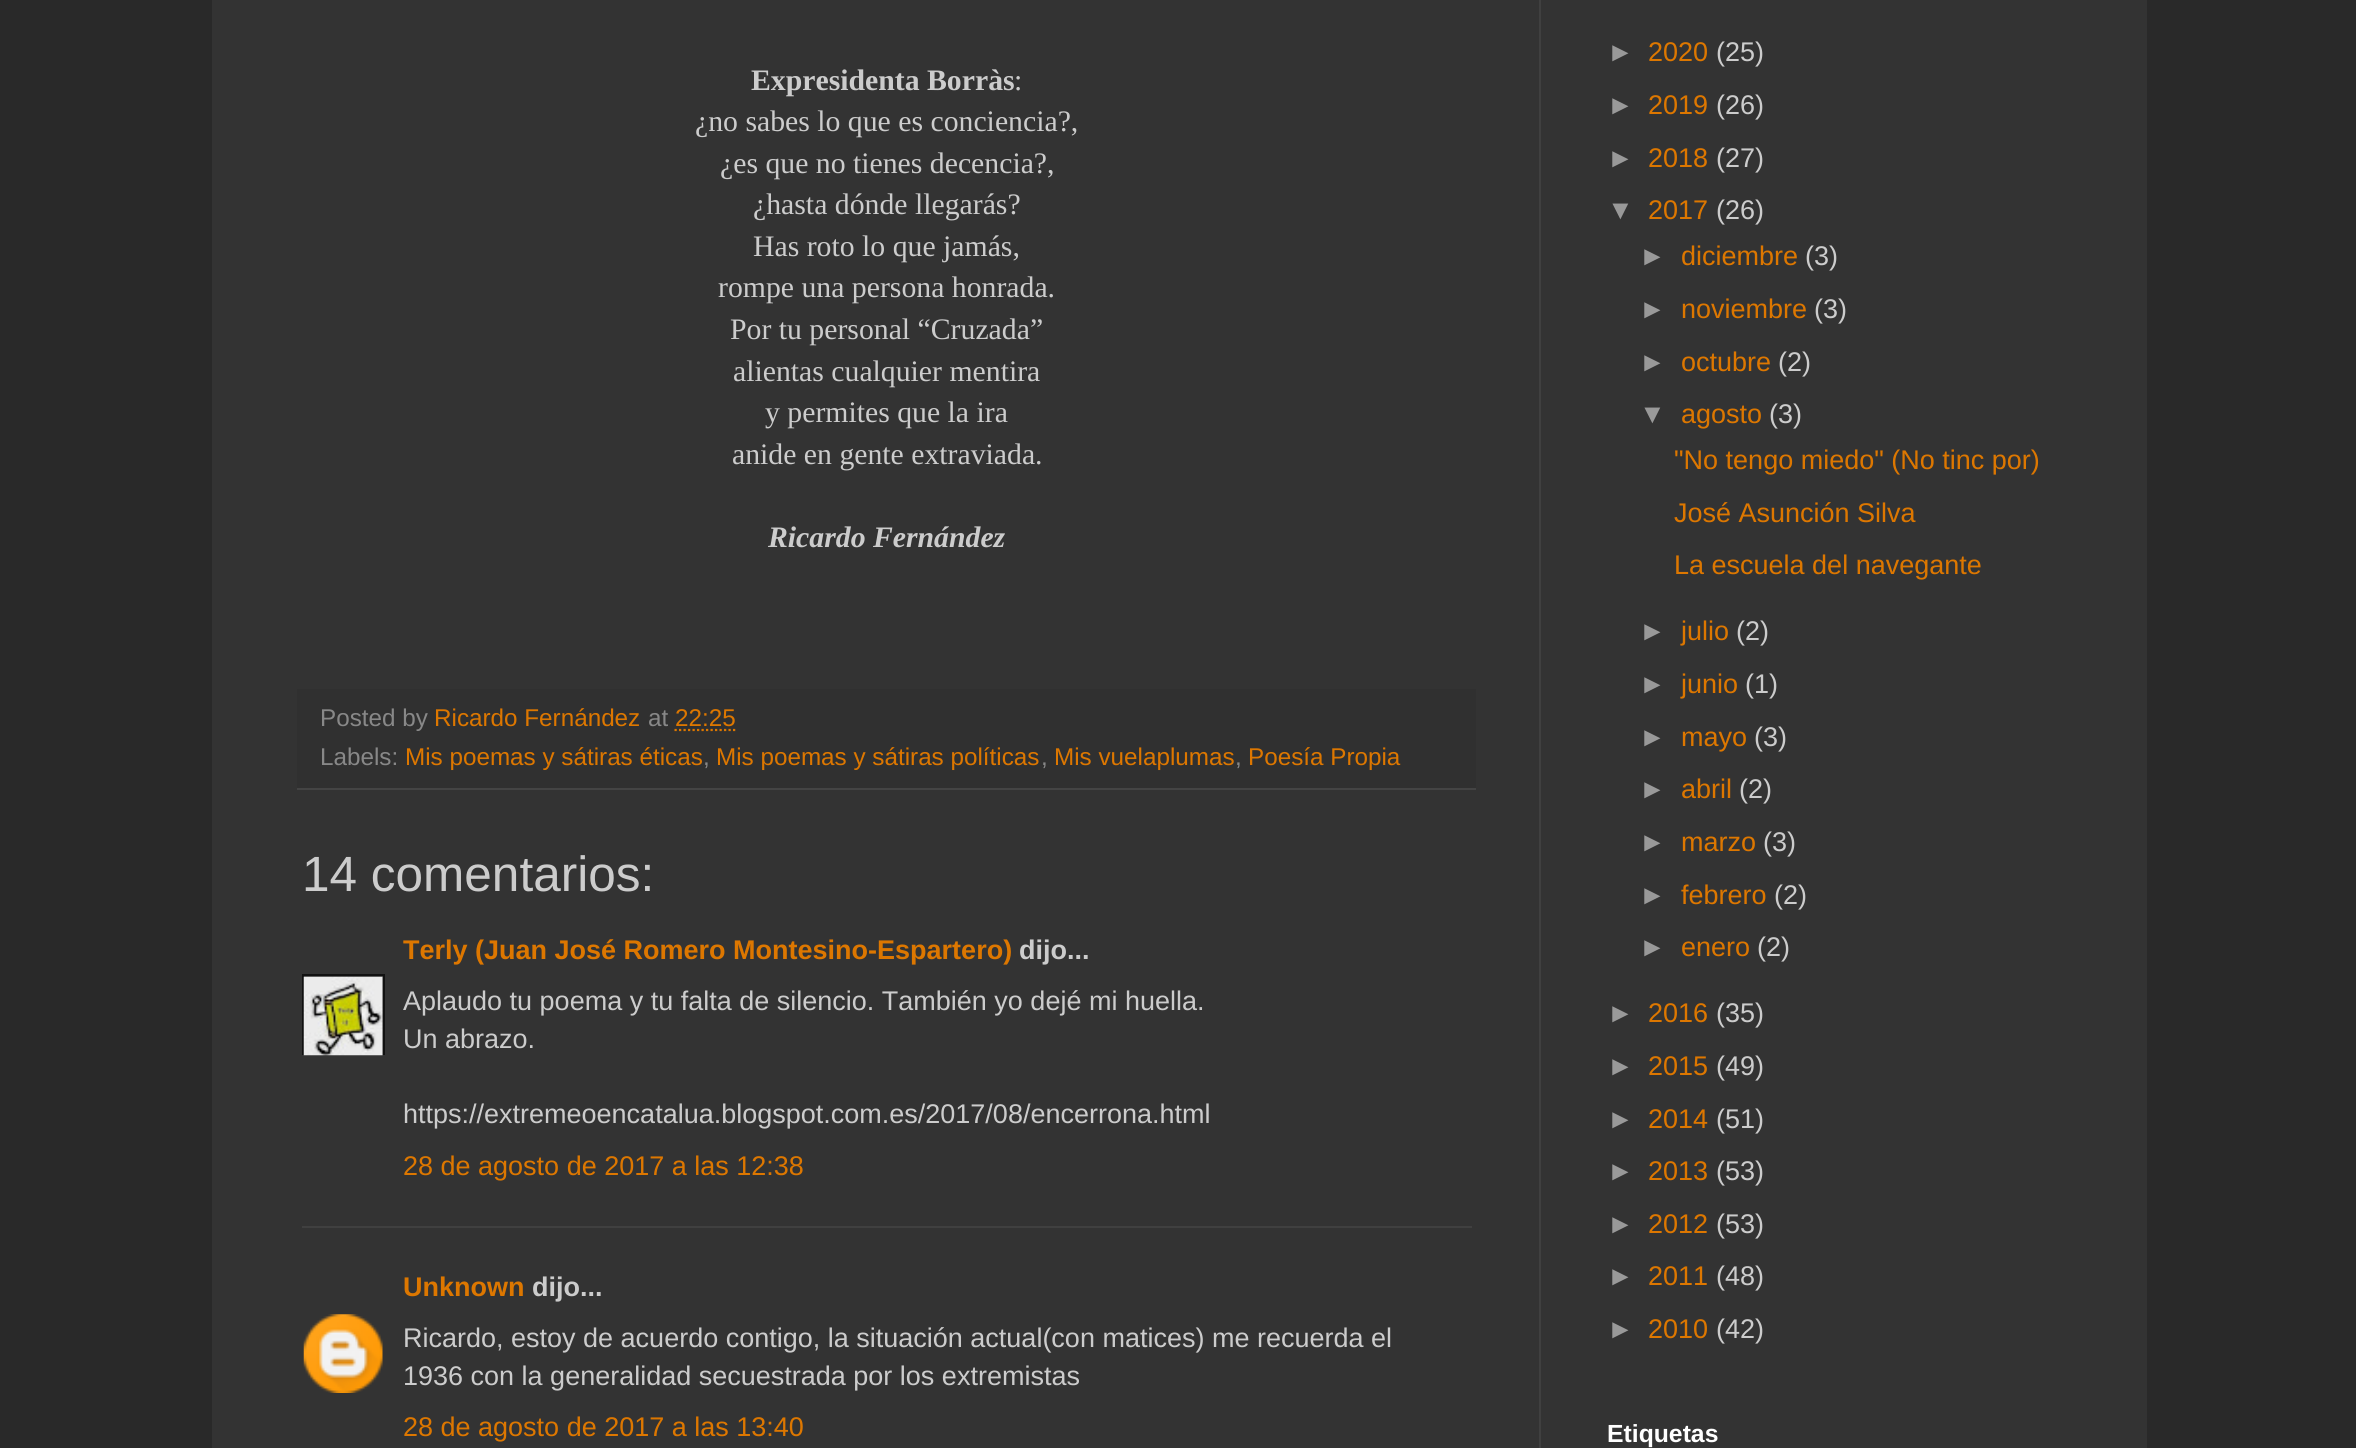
import math
import cairo


def paste(ctx, path, x, y, w, h):
	ctx.save()
	ctx.set_source_surface(cairo.ImageSurface.create_from_png(path), x, y)
	ctx.rectangle(x, y, w, h)
	ctx.fill()
	ctx.restore()

def draw(ctx):
	ctx.set_source_rgb(0.161, 0.161, 0.161)
	ctx.paint()
	ctx.set_source_rgb(0.2, 0.2, 0.2)
	ctx.rectangle(212, 0, 1935, 1448)
	ctx.fill()
	ctx.set_source_rgb(0.251, 0.251, 0.251)
	ctx.rectangle(1539, 0, 2, 1448)
	ctx.fill()
	ctx.select_font_face('Liberation Serif', cairo.FONT_SLANT_NORMAL, cairo.FONT_WEIGHT_BOLD)
	ctx.set_font_size(29.75)
	ctx.set_source_rgb(0.8, 0.8, 0.8)
	ctx.move_to(751, 90)
	ctx.show_text('Expresidenta Borràs')
	ctx.select_font_face('Liberation Serif')
	for x, y, s in [
		(1014, 90, ':'),
		(695, 131, '¿no sabes lo que es conciencia?,'),
		(720, 173, '¿es que no tienes decencia?,'),
		(753, 214, '¿hasta dónde llegarás?'),
		(753, 256, 'Has roto lo que jamás,'),
		(718, 297, 'rompe una persona honrada.'),
		(730, 339, 'Por tu personal “Cruzada”'),
		(733, 381, 'alientas cualquier mentira'),
		(765, 422, 'y permites que la ira'),
		(732, 464, 'anide en gente extraviada.'),
	]:
		ctx.move_to(x, y)
		ctx.show_text(s)
	ctx.select_font_face('Liberation Serif', cairo.FONT_SLANT_ITALIC, cairo.FONT_WEIGHT_BOLD)
	ctx.move_to(768, 547)
	ctx.show_text('Ricardo Fernández')
	ctx.set_source_rgb(0.188, 0.188, 0.188)
	ctx.rectangle(297, 689, 1179, 99)
	ctx.fill()
	ctx.set_source_rgb(0.267, 0.267, 0.267)
	ctx.rectangle(297, 788, 1179, 2)
	ctx.fill()
	ctx.select_font_face('Liberation Sans')
	ctx.set_font_size(24.25)
	ctx.set_source_rgb(0.533, 0.533, 0.533)
	ctx.move_to(320, 726)
	ctx.show_text('Posted by')
	ctx.set_source_rgb(0.867, 0.467, 0)
	ctx.move_to(434, 726)
	ctx.show_text('Ricardo Fernández')
	ctx.set_source_rgb(0.533, 0.533, 0.533)
	ctx.move_to(648, 726)
	ctx.show_text('at')
	ctx.set_source_rgb(0.867, 0.467, 0)
	ctx.move_to(675, 726)
	ctx.show_text('22:25')
	ctx.new_path()
	ctx.move_to(674.5, 730)
	ctx.line_to(735.5, 730)
	ctx.set_line_width(2.2)
	ctx.set_dash([2.25, 2.25])
	ctx.stroke()
	ctx.set_source_rgb(0.533, 0.533, 0.533)
	ctx.move_to(320, 765)
	ctx.show_text('Labels:')
	ctx.set_source_rgb(0.867, 0.467, 0)
	ctx.move_to(405, 765)
	ctx.show_text('Mis poemas y sátiras éticas')
	ctx.set_source_rgb(0.533, 0.533, 0.533)
	ctx.move_to(703, 765)
	ctx.show_text(',')
	ctx.set_source_rgb(0.867, 0.467, 0)
	ctx.move_to(716, 765)
	ctx.show_text('Mis poemas y sátiras políticas')
	ctx.set_source_rgb(0.533, 0.533, 0.533)
	ctx.move_to(1041, 765)
	ctx.show_text(',')
	ctx.set_source_rgb(0.867, 0.467, 0)
	ctx.move_to(1054, 765)
	ctx.show_text('Mis vuelaplumas')
	ctx.set_source_rgb(0.533, 0.533, 0.533)
	ctx.move_to(1235, 765)
	ctx.show_text(',')
	ctx.set_source_rgb(0.867, 0.467, 0)
	ctx.move_to(1248, 765)
	ctx.show_text('Poesía Propia')
	ctx.set_font_size(49.5)
	ctx.set_source_rgb(0.8, 0.8, 0.8)
	ctx.move_to(302, 891)
	ctx.show_text('14 comentarios:')
	ctx.select_font_face('Liberation Sans', cairo.FONT_SLANT_NORMAL, cairo.FONT_WEIGHT_BOLD)
	ctx.set_font_size(27)
	ctx.set_source_rgb(0.867, 0.467, 0)
	ctx.move_to(403, 959)
	ctx.show_text('Terly (Juan José Romero Montesino-Espartero)')
	ctx.set_source_rgb(0.8, 0.8, 0.8)
	ctx.move_to(1019, 959)
	ctx.show_text('dijo...')
	ctx.save()
	ctx.rectangle(302, 974, 83, 81)
	ctx.clip()
	ctx.rectangle(303, 975, 81, 82)
	ctx.set_source_rgb(0.067, 0.067, 0.067)
	ctx.set_line_width(2)
	ctx.set_dash([])
	ctx.stroke()
	ctx.restore()
	paste(ctx, 'media/1.png', 303, 976, 80, 80)
	ctx.select_font_face('Liberation Sans')
	for x, y, s in [
		(403, 1010, 'Aplaudo tu poema y tu falta de silencio. También yo dejé mi huella.'),
		(403, 1048, 'Un abrazo.'),
		(403, 1123, 'https://extremeoencatalua.blogspot.com.es/2017/08/encerrona.html'),
	]:
		ctx.move_to(x, y)
		ctx.show_text(s)
	ctx.set_source_rgb(0.867, 0.467, 0)
	ctx.move_to(403, 1175)
	ctx.show_text('28 de agosto de 2017 a las 12:38')
	ctx.set_source_rgb(0.251, 0.251, 0.251)
	ctx.rectangle(302, 1226, 1170, 2)
	ctx.fill()
	ctx.select_font_face('Liberation Sans', cairo.FONT_SLANT_NORMAL, cairo.FONT_WEIGHT_BOLD)
	ctx.set_source_rgb(0.867, 0.467, 0)
	ctx.move_to(403, 1296)
	ctx.show_text('Unknown')
	ctx.set_source_rgb(0.8, 0.8, 0.8)
	ctx.move_to(532, 1296)
	ctx.show_text('dijo...')
	paste(ctx, 'media/2.png', 303, 1314, 80, 79)
	ctx.select_font_face('Liberation Sans')
	ctx.move_to(403, 1347)
	ctx.show_text('Ricardo, estoy de acuerdo contigo, la situación actual(con matices) me recuerda el')
	ctx.move_to(403, 1385)
	ctx.show_text('1936 con la generalidad secuestrada por los extremistas')
	ctx.set_source_rgb(0.867, 0.467, 0)
	ctx.move_to(403, 1436)
	ctx.show_text('28 de agosto de 2017 a las 13:40')
	ctx.set_source_rgb(0.6, 0.6, 0.6)
	ctx.move_to(1607, 61)
	ctx.show_text('►')
	ctx.set_source_rgb(0.867, 0.467, 0)
	ctx.move_to(1648, 61)
	ctx.show_text('2020')
	ctx.set_source_rgb(0.8, 0.8, 0.8)
	ctx.move_to(1716, 61)
	ctx.show_text('(25)')
	ctx.set_source_rgb(0.6, 0.6, 0.6)
	ctx.move_to(1607, 114)
	ctx.show_text('►')
	ctx.set_source_rgb(0.867, 0.467, 0)
	ctx.move_to(1648, 114)
	ctx.show_text('2019')
	ctx.set_source_rgb(0.8, 0.8, 0.8)
	ctx.move_to(1716, 114)
	ctx.show_text('(26)')
	ctx.set_source_rgb(0.6, 0.6, 0.6)
	ctx.move_to(1607, 167)
	ctx.show_text('►')
	ctx.set_source_rgb(0.867, 0.467, 0)
	ctx.move_to(1648, 167)
	ctx.show_text('2018')
	ctx.set_source_rgb(0.8, 0.8, 0.8)
	ctx.move_to(1716, 167)
	ctx.show_text('(27)')
	ctx.set_source_rgb(0.6, 0.6, 0.6)
	ctx.move_to(1607, 219)
	ctx.show_text('▼')
	ctx.set_source_rgb(0.867, 0.467, 0)
	ctx.move_to(1648, 219)
	ctx.show_text('2017')
	ctx.set_source_rgb(0.8, 0.8, 0.8)
	ctx.move_to(1716, 219)
	ctx.show_text('(26)')
	ctx.set_source_rgb(0.6, 0.6, 0.6)
	ctx.move_to(1639, 265)
	ctx.show_text('►')
	ctx.set_source_rgb(0.867, 0.467, 0)
	ctx.move_to(1681, 265)
	ctx.show_text('diciembre')
	ctx.set_source_rgb(0.8, 0.8, 0.8)
	ctx.move_to(1805, 265)
	ctx.show_text('(3)')
	ctx.set_source_rgb(0.6, 0.6, 0.6)
	ctx.move_to(1639, 318)
	ctx.show_text('►')
	ctx.set_source_rgb(0.867, 0.467, 0)
	ctx.move_to(1681, 318)
	ctx.show_text('noviembre')
	ctx.set_source_rgb(0.8, 0.8, 0.8)
	ctx.move_to(1814, 318)
	ctx.show_text('(3)')
	ctx.set_source_rgb(0.6, 0.6, 0.6)
	ctx.move_to(1639, 371)
	ctx.show_text('►')
	ctx.set_source_rgb(0.867, 0.467, 0)
	ctx.move_to(1681, 371)
	ctx.show_text('octubre')
	ctx.set_source_rgb(0.8, 0.8, 0.8)
	ctx.move_to(1778, 371)
	ctx.show_text('(2)')
	ctx.set_source_rgb(0.6, 0.6, 0.6)
	ctx.move_to(1639, 423)
	ctx.show_text('▼')
	ctx.set_source_rgb(0.867, 0.467, 0)
	ctx.move_to(1681, 423)
	ctx.show_text('agosto')
	ctx.set_source_rgb(0.8, 0.8, 0.8)
	ctx.move_to(1769, 423)
	ctx.show_text('(3)')
	ctx.set_source_rgb(0.867, 0.467, 0)
	for x, y, s in [
		(1674, 469, '"No tengo miedo" (No tinc por)'),
		(1674, 522, 'José Asunción Silva'),
		(1674, 574, 'La escuela del navegante'),
	]:
		ctx.move_to(x, y)
		ctx.show_text(s)
	ctx.set_source_rgb(0.6, 0.6, 0.6)
	ctx.move_to(1639, 640)
	ctx.show_text('►')
	ctx.set_source_rgb(0.867, 0.467, 0)
	ctx.move_to(1681, 640)
	ctx.show_text('julio')
	ctx.set_source_rgb(0.8, 0.8, 0.8)
	ctx.move_to(1736, 640)
	ctx.show_text('(2)')
	ctx.set_source_rgb(0.6, 0.6, 0.6)
	ctx.move_to(1639, 693)
	ctx.show_text('►')
	ctx.set_source_rgb(0.867, 0.467, 0)
	ctx.move_to(1681, 693)
	ctx.show_text('junio')
	ctx.set_source_rgb(0.8, 0.8, 0.8)
	ctx.move_to(1745, 693)
	ctx.show_text('(1)')
	ctx.set_source_rgb(0.6, 0.6, 0.6)
	ctx.move_to(1639, 746)
	ctx.show_text('►')
	ctx.set_source_rgb(0.867, 0.467, 0)
	ctx.move_to(1681, 746)
	ctx.show_text('mayo')
	ctx.set_source_rgb(0.8, 0.8, 0.8)
	ctx.move_to(1754, 746)
	ctx.show_text('(3)')
	ctx.set_source_rgb(0.6, 0.6, 0.6)
	ctx.move_to(1639, 798)
	ctx.show_text('►')
	ctx.set_source_rgb(0.867, 0.467, 0)
	ctx.move_to(1681, 798)
	ctx.show_text('abril')
	ctx.set_source_rgb(0.8, 0.8, 0.8)
	ctx.move_to(1739, 798)
	ctx.show_text('(2)')
	ctx.set_source_rgb(0.6, 0.6, 0.6)
	ctx.move_to(1639, 851)
	ctx.show_text('►')
	ctx.set_source_rgb(0.867, 0.467, 0)
	ctx.move_to(1681, 851)
	ctx.show_text('marzo')
	ctx.set_source_rgb(0.8, 0.8, 0.8)
	ctx.move_to(1763, 851)
	ctx.show_text('(3)')
	ctx.set_source_rgb(0.6, 0.6, 0.6)
	ctx.move_to(1639, 904)
	ctx.show_text('►')
	ctx.set_source_rgb(0.867, 0.467, 0)
	ctx.move_to(1681, 904)
	ctx.show_text('febrero')
	ctx.set_source_rgb(0.8, 0.8, 0.8)
	ctx.move_to(1774, 904)
	ctx.show_text('(2)')
	ctx.set_source_rgb(0.6, 0.6, 0.6)
	ctx.move_to(1639, 956)
	ctx.show_text('►')
	ctx.set_source_rgb(0.867, 0.467, 0)
	ctx.move_to(1681, 956)
	ctx.show_text('enero')
	ctx.set_source_rgb(0.8, 0.8, 0.8)
	ctx.move_to(1757, 956)
	ctx.show_text('(2)')
	ctx.set_source_rgb(0.6, 0.6, 0.6)
	ctx.move_to(1607, 1022)
	ctx.show_text('►')
	ctx.set_source_rgb(0.867, 0.467, 0)
	ctx.move_to(1648, 1022)
	ctx.show_text('2016')
	ctx.set_source_rgb(0.8, 0.8, 0.8)
	ctx.move_to(1716, 1022)
	ctx.show_text('(35)')
	ctx.set_source_rgb(0.6, 0.6, 0.6)
	ctx.move_to(1607, 1075)
	ctx.show_text('►')
	ctx.set_source_rgb(0.867, 0.467, 0)
	ctx.move_to(1648, 1075)
	ctx.show_text('2015')
	ctx.set_source_rgb(0.8, 0.8, 0.8)
	ctx.move_to(1716, 1075)
	ctx.show_text('(49)')
	ctx.set_source_rgb(0.6, 0.6, 0.6)
	ctx.move_to(1607, 1128)
	ctx.show_text('►')
	ctx.set_source_rgb(0.867, 0.467, 0)
	ctx.move_to(1648, 1128)
	ctx.show_text('2014')
	ctx.set_source_rgb(0.8, 0.8, 0.8)
	ctx.move_to(1716, 1128)
	ctx.show_text('(51)')
	ctx.set_source_rgb(0.6, 0.6, 0.6)
	ctx.move_to(1607, 1180)
	ctx.show_text('►')
	ctx.set_source_rgb(0.867, 0.467, 0)
	ctx.move_to(1648, 1180)
	ctx.show_text('2013')
	ctx.set_source_rgb(0.8, 0.8, 0.8)
	ctx.move_to(1716, 1180)
	ctx.show_text('(53)')
	ctx.set_source_rgb(0.6, 0.6, 0.6)
	ctx.move_to(1607, 1233)
	ctx.show_text('►')
	ctx.set_source_rgb(0.867, 0.467, 0)
	ctx.move_to(1648, 1233)
	ctx.show_text('2012')
	ctx.set_source_rgb(0.8, 0.8, 0.8)
	ctx.move_to(1716, 1233)
	ctx.show_text('(53)')
	ctx.set_source_rgb(0.6, 0.6, 0.6)
	ctx.move_to(1607, 1285)
	ctx.show_text('►')
	ctx.set_source_rgb(0.867, 0.467, 0)
	ctx.move_to(1648, 1285)
	ctx.show_text('2011')
	ctx.set_source_rgb(0.8, 0.8, 0.8)
	ctx.move_to(1716, 1285)
	ctx.show_text('(48)')
	ctx.set_source_rgb(0.6, 0.6, 0.6)
	ctx.move_to(1607, 1338)
	ctx.show_text('►')
	ctx.set_source_rgb(0.867, 0.467, 0)
	ctx.move_to(1648, 1338)
	ctx.show_text('2010')
	ctx.set_source_rgb(0.8, 0.8, 0.8)
	ctx.move_to(1716, 1338)
	ctx.show_text('(42)')
	ctx.select_font_face('Liberation Sans', cairo.FONT_SLANT_NORMAL, cairo.FONT_WEIGHT_BOLD)
	ctx.set_font_size(24.75)
	ctx.set_source_rgb(1, 1, 1)
	ctx.move_to(1607, 1442)
	ctx.show_text('Etiquetas')


surface = cairo.ImageSurface(cairo.FORMAT_RGB24, 2356, 1448)
ctx = cairo.Context(surface)
options = cairo.FontOptions()
options.set_hint_metrics(cairo.HINT_METRICS_OFF)
options.set_hint_style(cairo.HINT_STYLE_NONE)
ctx.set_font_options(options)
ctx.set_miter_limit(4)
draw(ctx)
surface.write_to_png('image.png')
